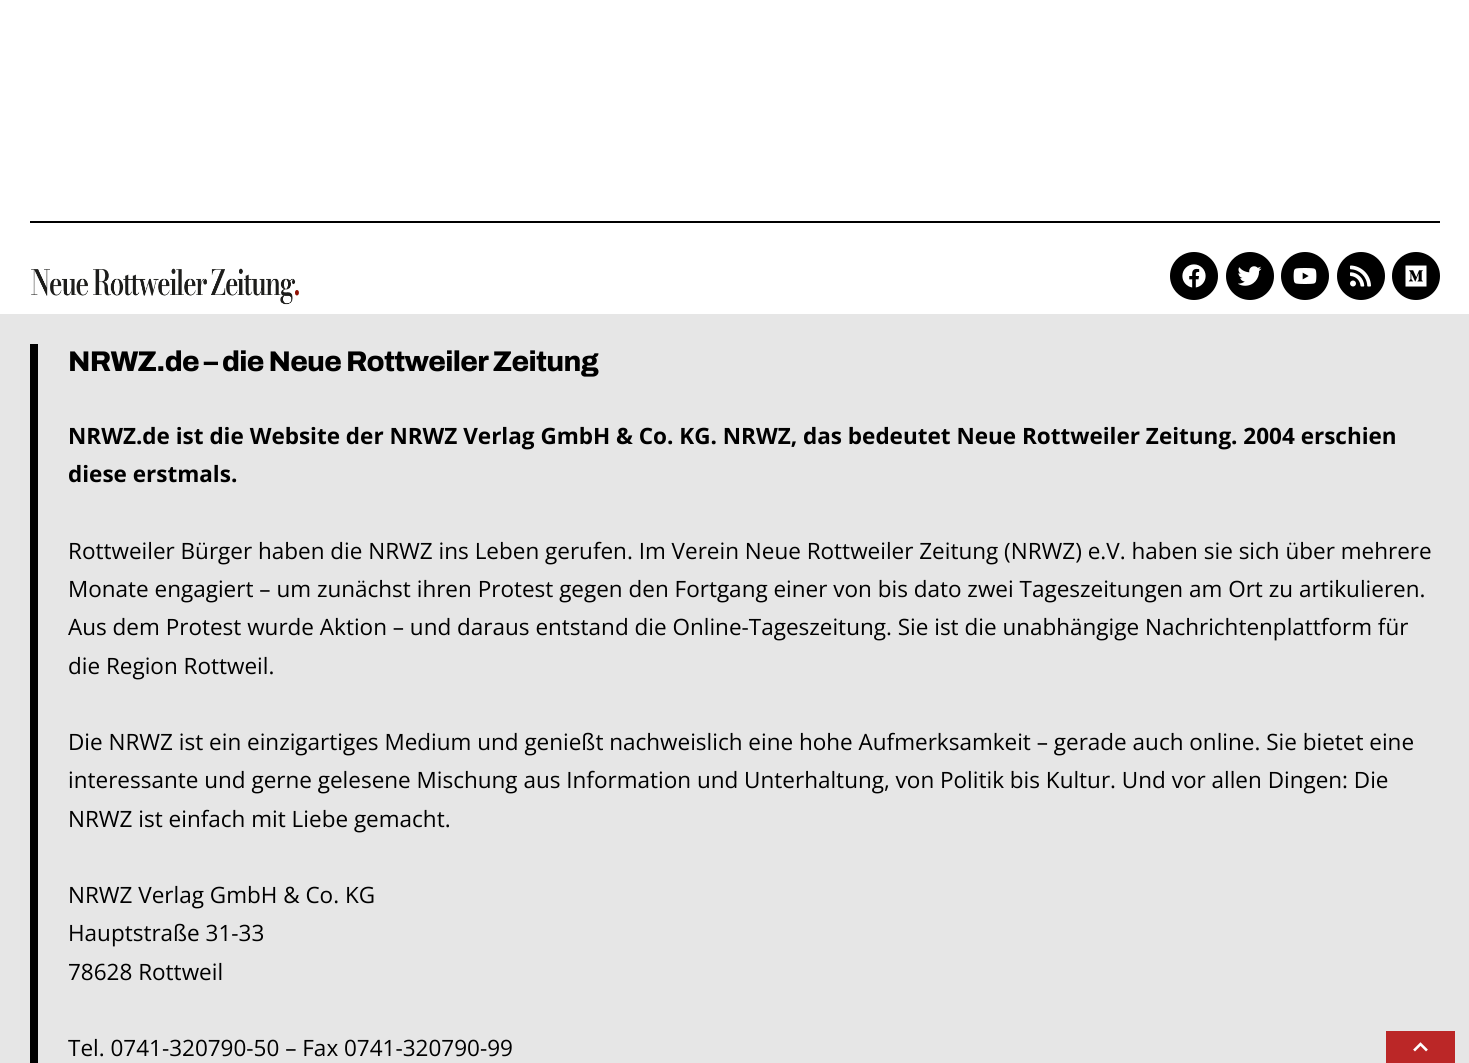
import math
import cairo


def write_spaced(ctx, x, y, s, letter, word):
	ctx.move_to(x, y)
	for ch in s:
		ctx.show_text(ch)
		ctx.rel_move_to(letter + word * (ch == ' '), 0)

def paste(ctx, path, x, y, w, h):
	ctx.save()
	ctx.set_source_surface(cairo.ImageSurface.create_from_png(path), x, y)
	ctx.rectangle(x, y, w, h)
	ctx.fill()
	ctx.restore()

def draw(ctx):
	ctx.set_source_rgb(1, 1, 1)
	ctx.paint()
	ctx.set_source_rgb(0, 0, 0)
	ctx.rectangle(30, 221, 1410, 2)
	ctx.fill()
	paste(ctx, 'media/1.png', 31, 268, 268, 37)
	ctx.arc(1194, 276, 24, 0, 2 * math.pi)
	ctx.fill()
	paste(ctx, 'media/2.png', 1182, 264, 24, 24)
	ctx.arc(1250, 276, 24, 0, 2 * math.pi)
	ctx.fill()
	paste(ctx, 'media/3.png', 1238, 266, 24, 20)
	ctx.arc(1305, 276, 24, 0, 2 * math.pi)
	ctx.fill()
	paste(ctx, 'media/4.png', 1293, 268, 24, 16)
	ctx.arc(1361, 276, 24, 0, 2 * math.pi)
	ctx.fill()
	paste(ctx, 'media/5.png', 1350, 265, 21, 22)
	ctx.arc(1416, 276, 24, 0, 2 * math.pi)
	ctx.fill()
	paste(ctx, 'media/6.png', 1405, 265, 22, 22)
	ctx.set_source_rgb(0.902, 0.902, 0.902)
	ctx.rectangle(0, 314, 1469, 749)
	ctx.fill()
	ctx.set_source_rgb(0, 0, 0)
	ctx.rectangle(30, 344, 8, 719)
	ctx.fill()
	ctx.select_font_face('Archivo ExtraBold')
	ctx.set_font_size(28.5)
	write_spaced(ctx, 68, 371, 'NRWZ.de – die Neue Rottweiler Zeitung', -0.7, 0)
	ctx.select_font_face('Open Sans', cairo.FONT_SLANT_NORMAL, cairo.FONT_WEIGHT_BOLD)
	ctx.set_font_size(22.5)
	ctx.move_to(68, 444)
	ctx.show_text('NRWZ.de ist die Website der NRWZ Verlag GmbH & Co. KG. NRWZ, das bedeutet Neue Rottweiler Zeitung. 2004 erschien')
	ctx.move_to(68, 482)
	ctx.show_text('diese erstmals.')
	ctx.select_font_face('Open Sans')
	for x, y, s in [
		(68, 559, 'Rottweiler Bürger haben die NRWZ ins Leben gerufen. Im Verein Neue Rottweiler Zeitung (NRWZ) e.V. haben sie sich über mehrere'),
		(68, 597, 'Monate engagiert – um zunächst ihren Protest gegen den Fortgang einer von bis dato zwei Tageszeitungen am Ort zu artikulieren.'),
		(68, 635, 'Aus dem Protest wurde Aktion – und daraus entstand die Online-Tageszeitung. Sie ist die unabhängige Nachrichtenplattform für'),
		(68, 674, 'die Region Rottweil.'),
		(68, 750, 'Die NRWZ ist ein einzigartiges Medium und genießt nachweislich eine hohe Aufmerksamkeit – gerade auch online. Sie bietet eine'),
		(68, 788, 'interessante und gerne gelesene Mischung aus Information und Unterhaltung, von Politik bis Kultur. Und vor allen Dingen: Die'),
		(68, 827, 'NRWZ ist einfach mit Liebe gemacht.'),
		(68, 903, 'NRWZ Verlag GmbH & Co. KG'),
		(68, 941, 'Hauptstraße 31-33'),
		(68, 980, '78628 Rottweil'),
		(68, 1056, 'Tel. 0741-320790-50 – Fax 0741-320790-99'),
	]:
		ctx.move_to(x, y)
		ctx.show_text(s)
	ctx.set_source_rgb(0.733, 0.153, 0.153)
	ctx.rectangle(1386, 1031, 69, 32)
	ctx.fill()
	paste(ctx, 'media/7.png', 1413, 1042, 15, 10)


surface = cairo.ImageSurface(cairo.FORMAT_RGB24, 1469, 1063)
ctx = cairo.Context(surface)
options = cairo.FontOptions()
options.set_hint_metrics(cairo.HINT_METRICS_OFF)
options.set_hint_style(cairo.HINT_STYLE_NONE)
ctx.set_font_options(options)
ctx.set_miter_limit(4)
draw(ctx)
surface.write_to_png('image.png')
